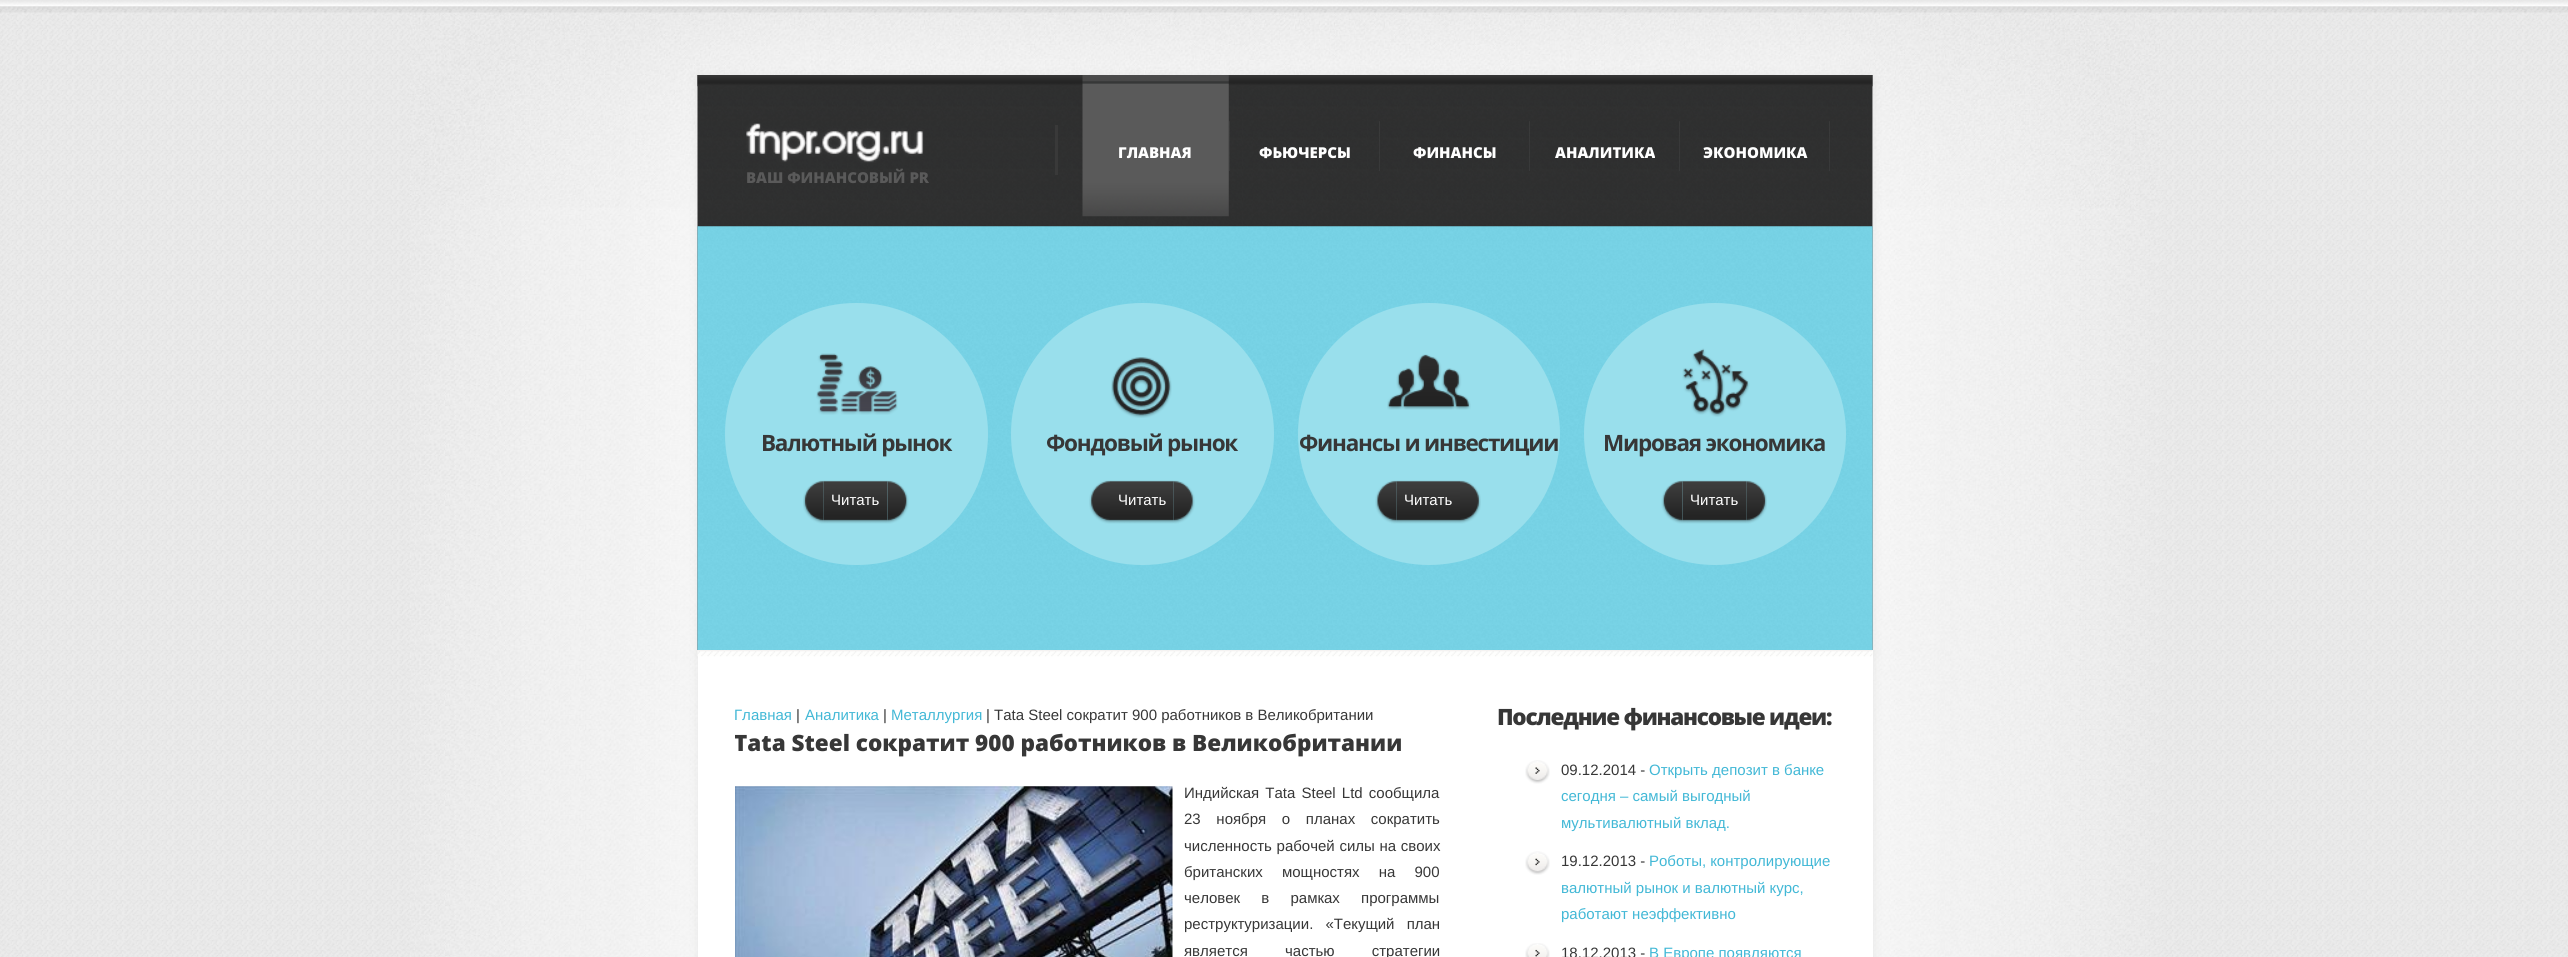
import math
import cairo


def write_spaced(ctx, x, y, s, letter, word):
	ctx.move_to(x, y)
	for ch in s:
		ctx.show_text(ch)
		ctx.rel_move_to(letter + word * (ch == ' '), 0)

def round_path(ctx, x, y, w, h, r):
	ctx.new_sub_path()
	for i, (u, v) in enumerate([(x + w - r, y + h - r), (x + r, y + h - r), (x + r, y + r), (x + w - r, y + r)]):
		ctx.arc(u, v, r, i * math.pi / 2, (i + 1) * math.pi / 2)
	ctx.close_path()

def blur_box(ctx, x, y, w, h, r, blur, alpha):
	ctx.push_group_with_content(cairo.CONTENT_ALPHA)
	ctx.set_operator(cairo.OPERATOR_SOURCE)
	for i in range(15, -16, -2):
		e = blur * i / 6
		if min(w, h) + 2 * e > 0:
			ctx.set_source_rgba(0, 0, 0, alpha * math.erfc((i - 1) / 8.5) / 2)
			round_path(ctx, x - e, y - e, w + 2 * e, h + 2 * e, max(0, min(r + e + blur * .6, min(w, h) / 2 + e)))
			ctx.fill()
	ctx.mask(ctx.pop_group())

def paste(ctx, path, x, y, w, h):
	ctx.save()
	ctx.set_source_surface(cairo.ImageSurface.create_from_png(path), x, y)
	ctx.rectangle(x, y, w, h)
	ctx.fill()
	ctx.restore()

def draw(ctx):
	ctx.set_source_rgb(1, 1, 1)
	ctx.paint()
	paste(ctx, 'media/1.png', 0, 12, 2568, 945)
	paste(ctx, 'media/2.png', 410, 207, 1749, 750)
	paste(ctx, 'media/3.png', 410, 12, 1750, 196)
	paste(ctx, 'media/4.png', 0, 0, 2568, 13)
	ctx.set_source_rgb(0.435, 0.424, 0.396)
	blur_box(ctx, 698, 76, 1175, 575, 0, 5, 0.1)
	ctx.set_source_rgb(1, 1, 1)
	ctx.rectangle(1872, 75, 1, 575)
	ctx.fill()
	paste(ctx, 'media/5.png', 697, 75, 1176, 575)
	paste(ctx, 'media/6.png', 697, 75, 1176, 12)
	ctx.set_source_rgb(0.224, 0.224, 0.224)
	ctx.rectangle(1055, 125, 3, 50)
	ctx.fill()
	paste(ctx, 'media/7.png', 1229, 121, 1, 50)
	paste(ctx, 'media/8.png', 1082, 75, 147, 142)
	ctx.select_font_face('Open Sans ExtraBold')
	ctx.set_font_size(15)
	ctx.set_source_rgb(1, 1, 1)
	ctx.move_to(1118, 158)
	ctx.show_text('ГЛАВНАЯ')
	paste(ctx, 'media/7.png', 1379, 121, 1, 50)
	ctx.move_to(1259, 158)
	ctx.show_text('ФЬЮЧЕРСЫ')
	paste(ctx, 'media/7.png', 1529, 121, 1, 50)
	ctx.move_to(1413, 158)
	ctx.show_text('ФИНАНСЫ')
	paste(ctx, 'media/7.png', 1679, 121, 1, 50)
	ctx.move_to(1555, 158)
	ctx.show_text('АНАЛИТИКА')
	paste(ctx, 'media/7.png', 1829, 121, 1, 50)
	ctx.move_to(1703, 158)
	ctx.show_text('ЭКОНОМИКА')
	paste(ctx, 'media/9.png', 746, 123, 178, 40)
	ctx.set_source_rgb(0.353, 0.353, 0.353)
	ctx.move_to(746, 183)
	ctx.show_text('ВАШ ФИНАНСОВЫЙ PR')
	paste(ctx, 'media/10.png', 697, 226, 1176, 424)
	ctx.set_source_rgb(0.6, 0.875, 0.922)
	round_path(ctx, 725, 303, 263, 262, 131)
	ctx.fill()
	paste(ctx, 'media/11.png', 816, 353, 82, 62)
	ctx.select_font_face('Open Sans', cairo.FONT_SLANT_NORMAL, cairo.FONT_WEIGHT_BOLD)
	ctx.set_font_size(22.5)
	ctx.set_source_rgb(0.216, 0.216, 0.216)
	write_spaced(ctx, 761, 451, 'Валютный рынок', -1.25, 0)
	paste(ctx, 'media/12.png', 803, 480, 21, 44)
	paste(ctx, 'media/13.png', 887, 480, 22, 44)
	paste(ctx, 'media/14.png', 823, 480, 65, 44)
	ctx.select_font_face('Liberation Sans')
	ctx.set_font_size(15)
	ctx.set_source_rgb(1, 1, 1)
	ctx.move_to(831, 505)
	ctx.show_text('Читать')
	ctx.set_source_rgb(0.6, 0.875, 0.922)
	round_path(ctx, 1011, 303, 263, 262, 131)
	ctx.fill()
	paste(ctx, 'media/15.png', 1111, 357, 61, 61)
	ctx.select_font_face('Open Sans', cairo.FONT_SLANT_NORMAL, cairo.FONT_WEIGHT_BOLD)
	ctx.set_font_size(22.5)
	ctx.set_source_rgb(0.216, 0.216, 0.216)
	write_spaced(ctx, 1046, 451, 'Фондовый рынок', -1.25, 0)
	paste(ctx, 'media/16.png', 1089, 480, 21, 44)
	paste(ctx, 'media/17.png', 1173, 480, 22, 44)
	paste(ctx, 'media/18.png', 1110, 480, 64, 44)
	ctx.select_font_face('Liberation Sans')
	ctx.set_font_size(15)
	ctx.set_source_rgb(1, 1, 1)
	ctx.move_to(1118, 505)
	ctx.show_text('Читать')
	ctx.set_source_rgb(0.6, 0.875, 0.922)
	ctx.new_path()
	ctx.arc(1429, 434, 131, 0, 2 * math.pi)
	ctx.fill()
	paste(ctx, 'media/19.png', 1387, 354, 84, 56)
	ctx.select_font_face('Open Sans', cairo.FONT_SLANT_NORMAL, cairo.FONT_WEIGHT_BOLD)
	ctx.set_font_size(22.5)
	ctx.set_source_rgb(0.216, 0.216, 0.216)
	write_spaced(ctx, 1299, 451, 'Финансы и инвестиции', -1.25, 0)
	paste(ctx, 'media/20.png', 1375, 480, 22, 44)
	paste(ctx, 'media/21.png', 1460, 480, 21, 44)
	paste(ctx, 'media/22.png', 1396, 480, 64, 44)
	ctx.select_font_face('Liberation Sans')
	ctx.set_font_size(15)
	ctx.set_source_rgb(1, 1, 1)
	ctx.move_to(1404, 505)
	ctx.show_text('Читать')
	ctx.set_source_rgb(0.6, 0.875, 0.922)
	ctx.new_path()
	ctx.arc(1715, 434, 131, 0, 2 * math.pi)
	ctx.fill()
	paste(ctx, 'media/23.png', 1682, 348, 68, 69)
	ctx.select_font_face('Open Sans', cairo.FONT_SLANT_NORMAL, cairo.FONT_WEIGHT_BOLD)
	ctx.set_font_size(22.5)
	ctx.set_source_rgb(0.216, 0.216, 0.216)
	write_spaced(ctx, 1603, 451, 'Мировая экономика', -1.25, 0)
	paste(ctx, 'media/24.png', 1661, 480, 22, 44)
	paste(ctx, 'media/25.png', 1746, 480, 21, 44)
	paste(ctx, 'media/26.png', 1682, 480, 65, 44)
	ctx.select_font_face('Liberation Sans')
	ctx.set_font_size(15)
	ctx.set_source_rgb(1, 1, 1)
	ctx.move_to(1690, 505)
	ctx.show_text('Читать')
	ctx.save()
	ctx.rectangle(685, 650, 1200, 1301)
	ctx.clip()
	ctx.set_source_rgb(0.435, 0.424, 0.396)
	blur_box(ctx, 698, 651, 1175, 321, 0, 5, 0.1)
	ctx.restore()
	ctx.rectangle(698, 650, 1175, 307)
	ctx.fill()
	paste(ctx, 'media/27.png', 697, 650, 1176, 7)
	ctx.set_source_rgb(0.259, 0.722, 0.839)
	ctx.move_to(734, 720)
	ctx.show_text('Главная')
	ctx.set_source_rgb(0.216, 0.216, 0.216)
	ctx.move_to(796, 720)
	ctx.show_text('|')
	ctx.set_source_rgb(0.259, 0.722, 0.839)
	ctx.move_to(805, 720)
	ctx.show_text('Аналитика')
	ctx.set_source_rgb(0.216, 0.216, 0.216)
	ctx.move_to(883, 720)
	ctx.show_text('|')
	ctx.set_source_rgb(0.259, 0.722, 0.839)
	ctx.move_to(891, 720)
	ctx.show_text('Металлургия')
	ctx.set_source_rgb(0.216, 0.216, 0.216)
	ctx.move_to(986, 720)
	ctx.show_text('| Tata Steel сократит 900 работников в Великобритании')
	ctx.save()
	ctx.rectangle(735, 703, 706, 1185)
	ctx.clip()
	ctx.select_font_face('Open Sans ExtraBold')
	ctx.set_font_size(22.5)
	ctx.move_to(734, 751)
	ctx.show_text('Tata Steel сократит 900 работников в Великобритании')
	ctx.restore()
	paste(ctx, 'media/28.png', 735, 786, 438, 171)
	write_spaced(ctx, 1184, 798, 'Индийская Tata Steel Ltd сообщила', 0, 2)
	write_spaced(ctx, 1184, 824, '23 ноября о планах сократить', 0, 11.5)
	write_spaced(ctx, 1184, 851, 'численность рабочей силы на своих', 0, 0.5)
	write_spaced(ctx, 1184, 877, 'британских мощностях на 900', 0, 15)
	write_spaced(ctx, 1184, 903, 'человек в рамках программы', 0, 17)
	write_spaced(ctx, 1184, 929, 'реструктуризации. «Текущий план', 0, 8)
	write_spaced(ctx, 1184, 956, 'является частью стратегии', 0, 33)
	ctx.select_font_face('Open Sans ExtraBold')
	ctx.set_font_size(22.5)
	write_spaced(ctx, 1497, 725, 'Последние финансовые идеи:', -1.25, 0)
	paste(ctx, 'media/29.png', 1525, 760, 25, 24)
	ctx.select_font_face('Liberation Sans')
	ctx.set_font_size(15)
	ctx.move_to(1561, 775)
	ctx.show_text('09.12.2014 -')
	ctx.set_source_rgb(0.259, 0.722, 0.839)
	for x, y, s in [
		(1649, 775, 'Открыть депозит в банке'),
		(1561, 801, 'сегодня – самый выгодный'),
		(1561, 828, 'мультивалютный вклад.'),
	]:
		ctx.move_to(x, y)
		ctx.show_text(s)
	paste(ctx, 'media/30.png', 1525, 851, 25, 24)
	ctx.set_source_rgb(0.216, 0.216, 0.216)
	ctx.move_to(1561, 866)
	ctx.show_text('19.12.2013 -')
	ctx.set_source_rgb(0.259, 0.722, 0.839)
	for x, y, s in [
		(1649, 866, 'Роботы, контролирующие'),
		(1561, 893, 'валютный рынок и валютный курс,'),
		(1561, 919, 'работают неэффективно'),
	]:
		ctx.move_to(x, y)
		ctx.show_text(s)
	paste(ctx, 'media/31.png', 1525, 943, 25, 14)
	ctx.set_source_rgb(0.216, 0.216, 0.216)
	ctx.move_to(1561, 958)
	ctx.show_text('18.12.2013 -')
	ctx.set_source_rgb(0.259, 0.722, 0.839)
	ctx.move_to(1649, 958)
	ctx.show_text('В Европе появляются')


surface = cairo.ImageSurface(cairo.FORMAT_RGB24, 2568, 957)
ctx = cairo.Context(surface)
options = cairo.FontOptions()
options.set_hint_metrics(cairo.HINT_METRICS_OFF)
options.set_hint_style(cairo.HINT_STYLE_NONE)
ctx.set_font_options(options)
ctx.set_miter_limit(4)
draw(ctx)
surface.write_to_png('image.png')
